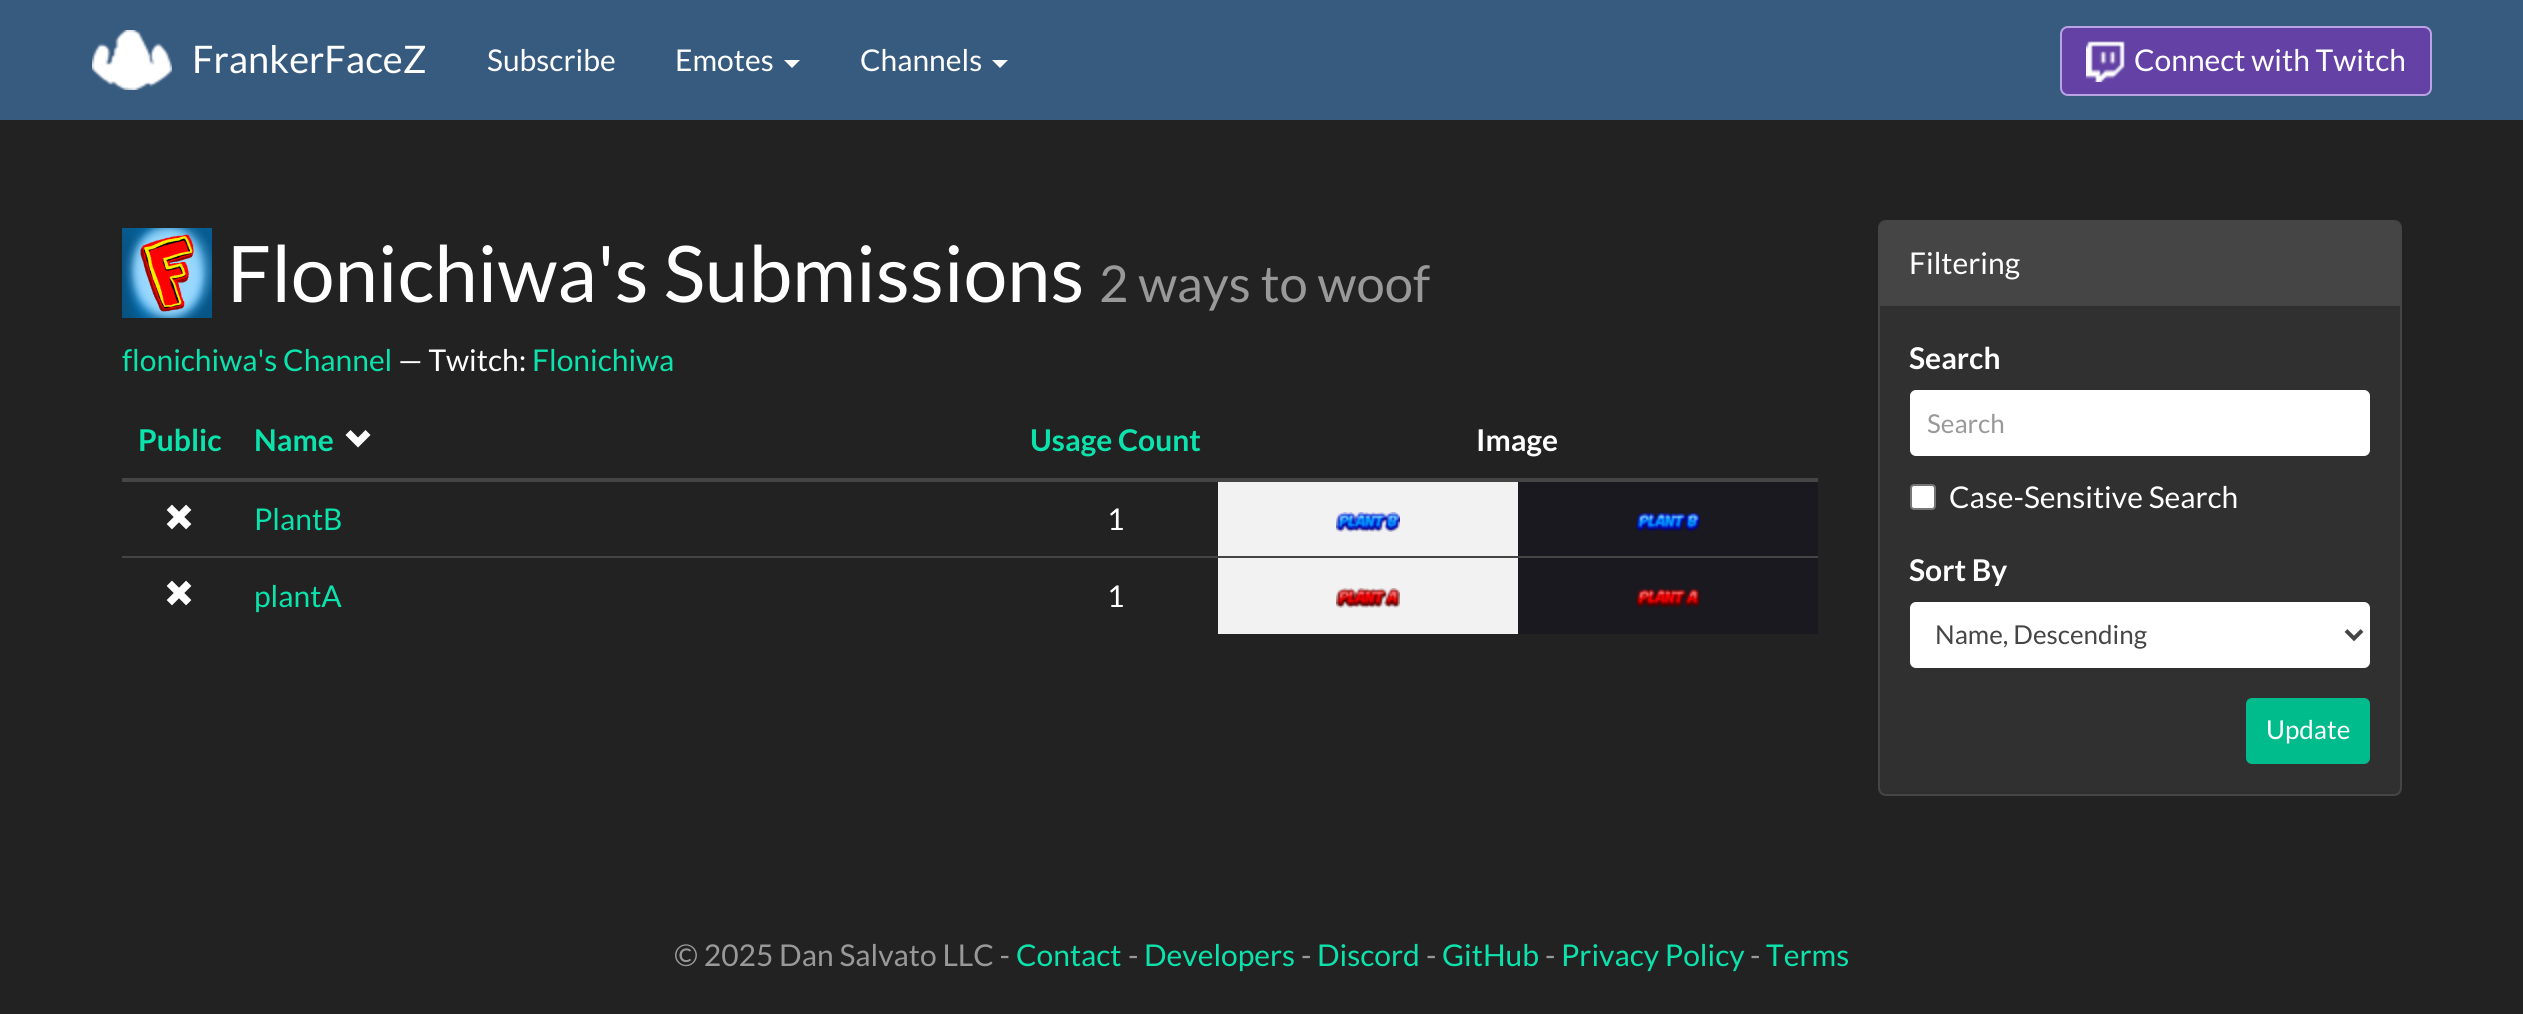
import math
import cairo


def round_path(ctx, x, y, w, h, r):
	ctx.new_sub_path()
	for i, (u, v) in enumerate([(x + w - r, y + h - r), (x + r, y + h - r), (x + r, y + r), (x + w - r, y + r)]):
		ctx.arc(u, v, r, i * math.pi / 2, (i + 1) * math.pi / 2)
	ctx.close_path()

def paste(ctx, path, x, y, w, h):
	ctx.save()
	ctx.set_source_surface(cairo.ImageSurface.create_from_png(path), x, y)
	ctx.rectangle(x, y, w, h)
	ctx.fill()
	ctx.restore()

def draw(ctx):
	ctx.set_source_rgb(0.133, 0.133, 0.133)
	ctx.paint()
	ctx.set_source_rgb(0.216, 0.353, 0.498)
	ctx.rectangle(0, 0, 2523, 120)
	ctx.fill()
	paste(ctx, 'media/1.png', 92, 30, 80, 60)
	ctx.select_font_face('Lato')
	ctx.set_font_size(38)
	ctx.set_source_rgb(1, 1, 1)
	ctx.move_to(192, 73)
	ctx.show_text('FrankerFaceZ')
	ctx.set_font_size(30)
	ctx.move_to(487, 71)
	ctx.show_text('Subscribe')
	ctx.move_to(675, 71)
	ctx.show_text('Emotes')
	ctx.new_path()
	ctx.move_to(784, 60)
	ctx.line_to(800, 60)
	ctx.line_to(792, 68)
	ctx.close_path()
	ctx.fill()
	ctx.move_to(860, 71)
	ctx.show_text('Channels')
	ctx.new_path()
	ctx.move_to(992, 60)
	ctx.line_to(1008, 60)
	ctx.line_to(1000, 68)
	ctx.close_path()
	ctx.fill()
	ctx.set_source_rgb(0.392, 0.255, 0.647)
	round_path(ctx, 2061, 27, 370, 68, 7)
	ctx.fill_preserve()
	ctx.set_source_rgb(0.725, 0.639, 0.89)
	ctx.stroke()
	paste(ctx, 'media/2.png', 2086, 41, 39, 41)
	ctx.set_source_rgb(1, 1, 1)
	ctx.move_to(2134, 71)
	ctx.show_text('Connect with Twitch')
	paste(ctx, 'media/3.png', 122, 228, 90, 90)
	ctx.set_font_size(78)
	ctx.move_to(227, 302)
	ctx.show_text('Flonichiwa\'s Submissions')
	ctx.set_font_size(50.75)
	ctx.set_source_rgb(0.6, 0.6, 0.6)
	ctx.move_to(1099, 302)
	ctx.show_text('2 ways to woof')
	ctx.set_font_size(30)
	ctx.set_source_rgb(0.047, 0.89, 0.675)
	ctx.move_to(122, 371)
	ctx.show_text('flonichiwa\'s Channel')
	ctx.set_source_rgb(1, 1, 1)
	ctx.move_to(398, 371)
	ctx.show_text('— Twitch:')
	ctx.set_source_rgb(0.047, 0.89, 0.675)
	ctx.move_to(532, 371)
	ctx.show_text('Flonichiwa')
	ctx.select_font_face('Lato', cairo.FONT_SLANT_NORMAL, cairo.FONT_WEIGHT_BOLD)
	ctx.move_to(138, 451)
	ctx.show_text('Public')
	ctx.move_to(254, 451)
	ctx.show_text('Name')
	ctx.set_source_rgb(1, 1, 1)
	ctx.new_path()
	ctx.move_to(345.5, 435)
	ctx.line_to(358, 447.5)
	ctx.line_to(370.5, 435)
	ctx.line_to(365.5, 430)
	ctx.line_to(358, 437.5)
	ctx.line_to(350.5, 430)
	ctx.close_path()
	ctx.fill()
	ctx.set_source_rgb(0.047, 0.89, 0.675)
	ctx.move_to(1030, 451)
	ctx.show_text('Usage Count')
	ctx.set_source_rgb(0.275, 0.271, 0.271)
	ctx.rectangle(122, 478, 1696, 4)
	ctx.fill()
	ctx.set_source_rgb(1, 1, 1)
	ctx.move_to(1476, 451)
	ctx.show_text('Image')
	paste(ctx, 'media/4.png', 166, 504, 26, 26)
	ctx.select_font_face('Lato')
	ctx.set_source_rgb(0.047, 0.89, 0.675)
	ctx.move_to(254, 530)
	ctx.show_text('PlantB')
	ctx.set_source_rgb(1, 1, 1)
	ctx.move_to(1107, 530)
	ctx.show_text('1')
	ctx.set_source_rgb(0.949, 0.949, 0.949)
	ctx.rectangle(1218, 482, 300, 74)
	ctx.fill()
	paste(ctx, 'media/5.png', 1336, 512, 64, 20)
	ctx.set_source_rgb(0.098, 0.098, 0.122)
	ctx.rectangle(1518, 482, 300, 74)
	ctx.fill()
	paste(ctx, 'media/6.png', 1636, 512, 64, 20)
	ctx.rectangle(1518, 558, 300, 76)
	ctx.fill()
	ctx.set_source_rgb(0.275, 0.271, 0.271)
	ctx.rectangle(122, 556, 1696, 2)
	ctx.fill()
	paste(ctx, 'media/7.png', 1636, 588, 64, 20)
	paste(ctx, 'media/4.png', 166, 580, 26, 26)
	ctx.set_source_rgb(0.047, 0.89, 0.675)
	ctx.move_to(254, 607)
	ctx.show_text('plantA')
	ctx.set_source_rgb(1, 1, 1)
	ctx.move_to(1107, 607)
	ctx.show_text('1')
	ctx.set_source_rgb(0.949, 0.949, 0.949)
	ctx.rectangle(1218, 558, 300, 76)
	ctx.fill()
	paste(ctx, 'media/8.png', 1336, 588, 64, 20)
	ctx.set_source_rgb(0.188, 0.188, 0.188)
	round_path(ctx, 1879, 221, 522, 574, 7)
	ctx.fill_preserve()
	ctx.set_source_rgb(0.275, 0.271, 0.271)
	ctx.stroke()
	ctx.new_path()
	ctx.move_to(1886, 222)
	ctx.line_to(2394, 222)
	ctx.curve_to(2397.5, 222, 2400, 224.5, 2400, 228)
	ctx.line_to(2400, 306)
	ctx.line_to(1880, 306)
	ctx.line_to(1880, 228)
	ctx.curve_to(1880, 224.5, 1882.5, 222, 1886, 222)
	ctx.close_path()
	ctx.fill()
	ctx.set_source_rgb(1, 1, 1)
	ctx.move_to(1909, 274)
	ctx.show_text('Filtering')
	ctx.select_font_face('Lato', cairo.FONT_SLANT_NORMAL, cairo.FONT_WEIGHT_BOLD)
	ctx.move_to(1909, 369)
	ctx.show_text('Search')
	round_path(ctx, 1910, 390, 460, 66, 6)
	ctx.fill()
	ctx.select_font_face('Lato')
	ctx.set_font_size(26)
	ctx.set_source_rgb(0.6, 0.6, 0.6)
	ctx.move_to(1927, 433)
	ctx.show_text('Search')
	ctx.set_source_rgb(1, 1, 1)
	round_path(ctx, 1911, 485, 24, 24, 3)
	ctx.fill_preserve()
	ctx.set_source_rgb(0.463, 0.463, 0.463)
	ctx.stroke()
	ctx.set_font_size(30)
	ctx.set_source_rgb(1, 1, 1)
	ctx.move_to(1949, 508)
	ctx.show_text('Case-Sensitive Search')
	ctx.select_font_face('Lato', cairo.FONT_SLANT_NORMAL, cairo.FONT_WEIGHT_BOLD)
	ctx.move_to(1909, 581)
	ctx.show_text('Sort By')
	round_path(ctx, 1910, 602, 460, 66, 6)
	ctx.fill()
	ctx.new_path()
	ctx.move_to(2346, 630.5)
	ctx.line_to(2354, 638.5)
	ctx.line_to(2362, 630.5)
	ctx.set_source_rgb(0.275, 0.271, 0.271)
	ctx.set_line_width(4)
	ctx.stroke()
	ctx.select_font_face('Lato')
	ctx.set_font_size(26)
	ctx.move_to(1935, 644)
	ctx.show_text('Name, Descending')
	ctx.set_source_rgb(0, 0.737, 0.549)
	round_path(ctx, 2247, 699, 122, 64, 5)
	ctx.fill_preserve()
	ctx.set_line_width(2)
	ctx.stroke()
	ctx.set_source_rgb(1, 1, 1)
	ctx.move_to(2266, 739)
	ctx.show_text('Update')
	ctx.set_font_size(30)
	ctx.set_source_rgb(0.6, 0.6, 0.6)
	ctx.move_to(674, 966)
	ctx.show_text('© 2025 Dan Salvato LLC -')
	ctx.set_source_rgb(0.047, 0.89, 0.675)
	ctx.move_to(1016, 966)
	ctx.show_text('Contact')
	ctx.set_source_rgb(0.6, 0.6, 0.6)
	ctx.move_to(1128, 966)
	ctx.show_text('-')
	ctx.set_source_rgb(0.047, 0.89, 0.675)
	ctx.move_to(1144, 966)
	ctx.show_text('Developers')
	ctx.set_source_rgb(0.6, 0.6, 0.6)
	ctx.move_to(1301, 966)
	ctx.show_text('-')
	ctx.set_source_rgb(0.047, 0.89, 0.675)
	ctx.move_to(1317, 966)
	ctx.show_text('Discord')
	ctx.set_source_rgb(0.6, 0.6, 0.6)
	ctx.move_to(1426, 966)
	ctx.show_text('-')
	ctx.set_source_rgb(0.047, 0.89, 0.675)
	ctx.move_to(1442, 966)
	ctx.show_text('GitHub')
	ctx.set_source_rgb(0.6, 0.6, 0.6)
	ctx.move_to(1545, 966)
	ctx.show_text('-')
	ctx.set_source_rgb(0.047, 0.89, 0.675)
	ctx.move_to(1561, 966)
	ctx.show_text('Privacy Policy')
	ctx.set_source_rgb(0.6, 0.6, 0.6)
	ctx.move_to(1750, 966)
	ctx.show_text('-')
	ctx.set_source_rgb(0.047, 0.89, 0.675)
	ctx.move_to(1766, 966)
	ctx.show_text('Terms')


surface = cairo.ImageSurface(cairo.FORMAT_RGB24, 2523, 1014)
ctx = cairo.Context(surface)
options = cairo.FontOptions()
options.set_hint_metrics(cairo.HINT_METRICS_OFF)
options.set_hint_style(cairo.HINT_STYLE_NONE)
ctx.set_font_options(options)
ctx.set_miter_limit(4)
draw(ctx)
surface.write_to_png('image.png')
